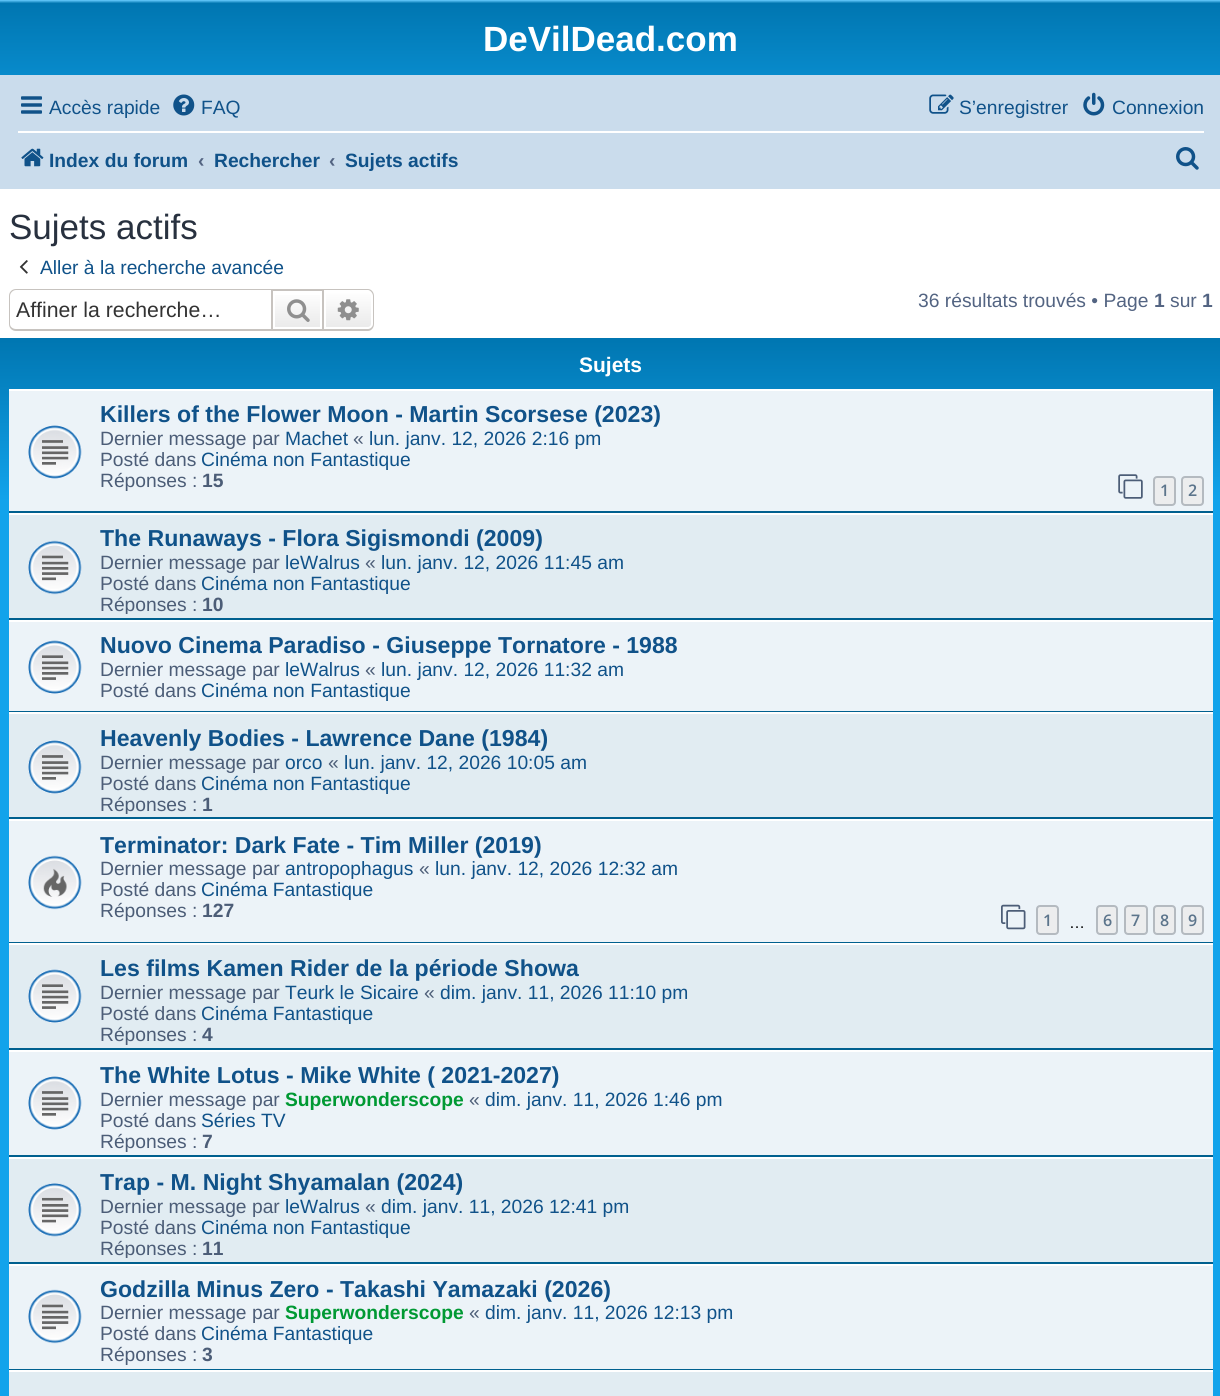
import math
import cairo


def round_path(ctx, x, y, w, h, r):
	ctx.new_sub_path()
	for i, (u, v) in enumerate([(x + w - r, y + h - r), (x + r, y + h - r), (x + r, y + r), (x + w - r, y + r)]):
		ctx.arc(u, v, r, i * math.pi / 2, (i + 1) * math.pi / 2)
	ctx.close_path()

def paste(ctx, path, x, y, w, h):
	ctx.save()
	ctx.set_source_surface(cairo.ImageSurface.create_from_png(path), x, y)
	ctx.rectangle(x, y, w, h)
	ctx.fill()
	ctx.restore()

def draw(ctx):
	ctx.set_source_rgb(1, 1, 1)
	ctx.paint()
	gradient = cairo.LinearGradient(611, 0, 611, 161)
	gradient.add_color_stop_rgba(0, 0.416, 0.808, 1, 1)
	gradient.add_color_stop_rgba(0.02, 0, 0.463, 0.694, 1)
	gradient.add_color_stop_rgba(1, 0.071, 0.639, 0.922, 1)
	ctx.set_source(gradient)
	ctx.rectangle(0, 0, 1220, 75)
	ctx.fill()
	ctx.select_font_face('Liberation Sans', cairo.FONT_SLANT_NORMAL, cairo.FONT_WEIGHT_BOLD)
	ctx.set_font_size(35)
	ctx.set_source_rgb(1, 1, 1)
	ctx.move_to(483, 51)
	ctx.show_text('DeVilDead.com')
	ctx.set_source_rgb(0.792, 0.863, 0.922)
	ctx.rectangle(0, 75, 1220, 114)
	ctx.fill()
	paste(ctx, 'media/1.png', 21, 96, 21, 18)
	ctx.select_font_face('Liberation Sans')
	ctx.set_font_size(19.25)
	ctx.set_source_rgb(0.063, 0.322, 0.537)
	ctx.move_to(49, 114)
	ctx.show_text('Accès rapide')
	paste(ctx, 'media/2.png', 173, 94, 22, 22)
	ctx.move_to(201, 114)
	ctx.show_text('FAQ')
	paste(ctx, 'media/3.png', 929, 94, 25, 20)
	ctx.move_to(959, 114)
	ctx.show_text('S’enregistrer')
	paste(ctx, 'media/4.png', 1083, 92, 22, 24)
	ctx.move_to(1112, 114)
	ctx.show_text('Connexion')
	ctx.set_source_rgb(1, 1, 1)
	ctx.rectangle(18, 131, 1186, 2)
	ctx.fill()
	paste(ctx, 'media/5.png', 21, 148, 23, 19)
	ctx.select_font_face('Liberation Sans', cairo.FONT_SLANT_NORMAL, cairo.FONT_WEIGHT_BOLD)
	ctx.set_source_rgb(0.063, 0.322, 0.537)
	ctx.move_to(49, 167)
	ctx.show_text('Index du forum')
	ctx.set_source_rgb(0.325, 0.392, 0.51)
	ctx.move_to(198, 167)
	ctx.show_text('‹')
	ctx.set_source_rgb(0.063, 0.322, 0.537)
	ctx.move_to(214, 167)
	ctx.show_text('Rechercher')
	ctx.set_source_rgb(0.325, 0.392, 0.51)
	ctx.move_to(329, 167)
	ctx.show_text('‹')
	ctx.set_source_rgb(0.063, 0.322, 0.537)
	ctx.move_to(345, 167)
	ctx.show_text('Sujets actifs')
	paste(ctx, 'media/6.png', 1176, 147, 23, 23)
	ctx.select_font_face('Liberation Sans')
	ctx.set_font_size(35)
	ctx.set_source_rgb(0.157, 0.192, 0.247)
	ctx.move_to(9, 239)
	ctx.show_text('Sujets actifs')
	paste(ctx, 'media/7.png', 19, 260, 9, 14)
	ctx.set_font_size(19.25)
	ctx.set_source_rgb(0.063, 0.322, 0.537)
	ctx.move_to(40, 274)
	ctx.show_text('Aller à la recherche avancée')
	ctx.set_source_rgb(0.78, 0.765, 0.749)
	ctx.set_fill_rule(cairo.FILL_RULE_EVEN_ODD)
	ctx.new_path()
	ctx.move_to(16, 289)
	ctx.line_to(271, 289)
	ctx.line_to(271, 331)
	ctx.line_to(16, 331)
	ctx.curve_to(12, 331, 9, 328, 9, 324)
	ctx.line_to(9, 296)
	ctx.curve_to(9, 292, 12, 289, 16, 289)
	ctx.close_path()
	ctx.move_to(16, 290)
	ctx.line_to(271, 290)
	ctx.line_to(271, 329)
	ctx.line_to(16, 329)
	ctx.curve_to(13, 329, 10, 327, 10, 324)
	ctx.line_to(10, 296)
	ctx.curve_to(10, 293, 13, 290, 16, 290)
	ctx.close_path()
	ctx.fill()
	ctx.set_font_size(21.25)
	ctx.set_source_rgb(0.2, 0.2, 0.2)
	ctx.move_to(16, 317)
	ctx.show_text('Affiner la recherche…')
	gradient = cairo.LinearGradient(298, 291, 298, 329)
	gradient.add_color_stop_rgba(0, 1, 1, 1, 1)
	gradient.add_color_stop_rgba(1, 0.914, 0.914, 0.914, 1)
	ctx.set_source(gradient)
	ctx.rectangle(275, 295, 45, 32)
	ctx.fill()
	ctx.rectangle(272, 290, 51, 40)
	ctx.set_source_rgb(0.78, 0.765, 0.749)
	ctx.stroke()
	paste(ctx, 'media/8.png', 287, 299, 23, 23)
	gradient = cairo.LinearGradient(348, 291, 348, 329)
	gradient.add_color_stop_rgba(0, 1, 1, 1, 1)
	gradient.add_color_stop_rgba(1, 0.914, 0.914, 0.914, 1)
	ctx.set_source(gradient)
	ctx.new_path()
	ctx.move_to(325, 292)
	ctx.line_to(368, 292)
	ctx.curve_to(370, 292, 372, 294, 372, 296)
	ctx.line_to(372, 324)
	ctx.curve_to(372, 326, 370, 328, 368, 328)
	ctx.line_to(325, 328)
	ctx.close_path()
	ctx.fill_preserve()
	ctx.set_source_rgb(1, 1, 1)
	ctx.stroke()
	ctx.set_source_rgb(0.78, 0.765, 0.749)
	ctx.new_path()
	ctx.move_to(324, 289)
	ctx.line_to(368, 289)
	ctx.curve_to(371, 289, 374, 292, 374, 296)
	ctx.line_to(374, 324)
	ctx.curve_to(374, 328, 371, 331, 368, 331)
	ctx.line_to(324, 331)
	ctx.close_path()
	ctx.move_to(324, 290)
	ctx.line_to(368, 290)
	ctx.curve_to(370, 290, 373, 293, 373, 296)
	ctx.line_to(373, 324)
	ctx.curve_to(373, 327, 370, 329, 368, 329)
	ctx.line_to(324, 329)
	ctx.close_path()
	ctx.fill()
	paste(ctx, 'media/9.png', 337, 299, 22, 22)
	ctx.set_font_size(19.25)
	ctx.set_source_rgb(0.325, 0.392, 0.51)
	ctx.move_to(918, 307)
	ctx.show_text('36 résultats trouvés • Page')
	ctx.select_font_face('Liberation Sans', cairo.FONT_SLANT_NORMAL, cairo.FONT_WEIGHT_BOLD)
	ctx.move_to(1154, 307)
	ctx.show_text('1')
	ctx.select_font_face('Liberation Sans')
	ctx.move_to(1170, 307)
	ctx.show_text('sur')
	ctx.select_font_face('Liberation Sans', cairo.FONT_SLANT_NORMAL, cairo.FONT_WEIGHT_BOLD)
	ctx.move_to(1202, 307)
	ctx.show_text('1')
	gradient = cairo.LinearGradient(611, 338, 611, 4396)
	gradient.add_color_stop_rgba(0, 0.416, 0.808, 1, 1)
	gradient.add_color_stop_rgba(0, 0, 0.463, 0.694, 1)
	gradient.add_color_stop_rgba(0.04, 0.071, 0.639, 0.922, 1)
	gradient.add_color_stop_rgba(1, 0.071, 0.639, 0.922, 1)
	ctx.set_source(gradient)
	ctx.rectangle(0, 338, 1220, 1058)
	ctx.fill()
	ctx.set_font_size(21)
	ctx.set_source_rgb(1, 1, 1)
	ctx.move_to(579, 372)
	ctx.show_text('Sujets')
	ctx.set_source_rgb(0.925, 0.953, 0.969)
	ctx.rectangle(9, 391, 1204, 120)
	ctx.fill()
	ctx.set_source_rgb(1, 1, 1)
	ctx.rectangle(9, 389, 1204, 2)
	ctx.fill()
	ctx.set_source_rgb(0, 0.376, 0.561)
	ctx.rectangle(9, 511, 1204, 2)
	ctx.fill()
	paste(ctx, 'media/10.png', 28, 425, 54, 54)
	ctx.set_font_size(23.1)
	ctx.set_source_rgb(0.063, 0.322, 0.537)
	ctx.move_to(100, 422)
	ctx.show_text('Killers of the Flower Moon - Martin Scorsese (2023)')
	ctx.select_font_face('Liberation Sans')
	ctx.set_font_size(19.25)
	ctx.set_source_rgb(0.298, 0.365, 0.467)
	ctx.move_to(100, 445)
	ctx.show_text('Dernier message par')
	ctx.set_source_rgb(0.063, 0.322, 0.537)
	ctx.move_to(285, 445)
	ctx.show_text('Machet')
	ctx.set_source_rgb(0.298, 0.365, 0.467)
	ctx.move_to(353, 445)
	ctx.show_text('«')
	ctx.set_source_rgb(0.063, 0.322, 0.537)
	ctx.move_to(369, 445)
	ctx.show_text('lun. janv. 12, 2026 2:16 pm')
	ctx.set_source_rgb(0.298, 0.365, 0.467)
	ctx.move_to(100, 466)
	ctx.show_text('Posté dans')
	ctx.set_source_rgb(0.063, 0.322, 0.537)
	ctx.move_to(201, 466)
	ctx.show_text('Cinéma non Fantastique')
	ctx.set_source_rgb(0.298, 0.365, 0.467)
	ctx.move_to(100, 487)
	ctx.show_text('Réponses :')
	ctx.select_font_face('Liberation Sans', cairo.FONT_SLANT_NORMAL, cairo.FONT_WEIGHT_BOLD)
	ctx.move_to(202, 487)
	ctx.show_text('15')
	paste(ctx, 'media/11.png', 1118, 474, 25, 25)
	ctx.set_source_rgb(0.925, 0.929, 0.933)
	round_path(ctx, 1154, 477, 21, 28, 3)
	ctx.fill_preserve()
	ctx.set_source_rgb(0.706, 0.729, 0.753)
	ctx.stroke()
	ctx.select_font_face('Open Sans SemiBold')
	ctx.set_font_size(16)
	ctx.set_source_rgb(0.361, 0.459, 0.549)
	ctx.move_to(1160, 496)
	ctx.show_text('1')
	ctx.set_source_rgb(0.925, 0.929, 0.933)
	round_path(ctx, 1182, 477, 21, 28, 3)
	ctx.fill_preserve()
	ctx.set_source_rgb(0.706, 0.729, 0.753)
	ctx.stroke()
	ctx.set_source_rgb(0.361, 0.459, 0.549)
	ctx.move_to(1188, 496)
	ctx.show_text('2')
	ctx.set_source_rgb(0.882, 0.922, 0.949)
	ctx.rectangle(9, 515, 1204, 103)
	ctx.fill()
	ctx.set_source_rgb(1, 1, 1)
	ctx.rectangle(9, 513, 1204, 2)
	ctx.fill()
	ctx.set_source_rgb(0, 0.376, 0.561)
	ctx.rectangle(9, 618, 1204, 2)
	ctx.fill()
	paste(ctx, 'media/12.png', 28, 540, 54, 55)
	ctx.select_font_face('Liberation Sans', cairo.FONT_SLANT_NORMAL, cairo.FONT_WEIGHT_BOLD)
	ctx.set_font_size(23.1)
	ctx.set_source_rgb(0.063, 0.322, 0.537)
	ctx.move_to(100, 546)
	ctx.show_text('The Runaways - Flora Sigismondi (2009)')
	ctx.select_font_face('Liberation Sans')
	ctx.set_font_size(19.25)
	ctx.set_source_rgb(0.298, 0.365, 0.467)
	ctx.move_to(100, 569)
	ctx.show_text('Dernier message par')
	ctx.set_source_rgb(0.063, 0.322, 0.537)
	ctx.move_to(285, 569)
	ctx.show_text('leWalrus')
	ctx.set_source_rgb(0.298, 0.365, 0.467)
	ctx.move_to(365, 569)
	ctx.show_text('«')
	ctx.set_source_rgb(0.063, 0.322, 0.537)
	ctx.move_to(381, 569)
	ctx.show_text('lun. janv. 12, 2026 11:45 am')
	ctx.set_source_rgb(0.298, 0.365, 0.467)
	ctx.move_to(100, 590)
	ctx.show_text('Posté dans')
	ctx.set_source_rgb(0.063, 0.322, 0.537)
	ctx.move_to(201, 590)
	ctx.show_text('Cinéma non Fantastique')
	ctx.save()
	ctx.set_fill_rule(cairo.FILL_RULE_WINDING)
	ctx.rectangle(9, 518, 1204, 96)
	ctx.clip()
	ctx.set_source_rgb(0.298, 0.365, 0.467)
	ctx.move_to(100, 611)
	ctx.show_text('Réponses :')
	ctx.restore()
	ctx.select_font_face('Liberation Sans', cairo.FONT_SLANT_NORMAL, cairo.FONT_WEIGHT_BOLD)
	ctx.set_source_rgb(0.298, 0.365, 0.467)
	ctx.move_to(202, 611)
	ctx.show_text('10')
	ctx.set_source_rgb(0.925, 0.953, 0.969)
	ctx.rectangle(9, 622, 1204, 89)
	ctx.fill()
	ctx.set_source_rgb(1, 1, 1)
	ctx.rectangle(9, 620, 1204, 2)
	ctx.fill()
	ctx.set_source_rgb(0, 0.376, 0.561)
	ctx.rectangle(9, 711, 1204, 1)
	ctx.fill()
	paste(ctx, 'media/13.png', 28, 640, 54, 54)
	ctx.set_font_size(23.1)
	ctx.set_source_rgb(0.063, 0.322, 0.537)
	ctx.move_to(100, 653)
	ctx.show_text('Nuovo Cinema Paradiso - Giuseppe Tornatore - 1988')
	ctx.select_font_face('Liberation Sans')
	ctx.set_font_size(19.25)
	ctx.set_source_rgb(0.298, 0.365, 0.467)
	ctx.move_to(100, 676)
	ctx.show_text('Dernier message par')
	ctx.set_source_rgb(0.063, 0.322, 0.537)
	ctx.move_to(285, 676)
	ctx.show_text('leWalrus')
	ctx.set_source_rgb(0.298, 0.365, 0.467)
	ctx.move_to(365, 676)
	ctx.show_text('«')
	ctx.set_source_rgb(0.063, 0.322, 0.537)
	ctx.move_to(381, 676)
	ctx.show_text('lun. janv. 12, 2026 11:32 am')
	ctx.set_source_rgb(0.298, 0.365, 0.467)
	ctx.move_to(100, 697)
	ctx.show_text('Posté dans')
	ctx.set_source_rgb(0.063, 0.322, 0.537)
	ctx.move_to(201, 697)
	ctx.show_text('Cinéma non Fantastique')
	ctx.set_source_rgb(0.882, 0.922, 0.949)
	ctx.rectangle(9, 714, 1204, 103)
	ctx.fill()
	ctx.set_source_rgb(1, 1, 1)
	ctx.rectangle(9, 712, 1204, 2)
	ctx.fill()
	ctx.set_source_rgb(0, 0.376, 0.561)
	ctx.rectangle(9, 817, 1204, 2)
	ctx.fill()
	paste(ctx, 'media/14.png', 28, 740, 54, 54)
	ctx.select_font_face('Liberation Sans', cairo.FONT_SLANT_NORMAL, cairo.FONT_WEIGHT_BOLD)
	ctx.set_font_size(23.1)
	ctx.set_source_rgb(0.063, 0.322, 0.537)
	ctx.move_to(100, 746)
	ctx.show_text('Heavenly Bodies - Lawrence Dane (1984)')
	ctx.select_font_face('Liberation Sans')
	ctx.set_font_size(19.25)
	ctx.set_source_rgb(0.298, 0.365, 0.467)
	ctx.move_to(100, 769)
	ctx.show_text('Dernier message par')
	ctx.set_source_rgb(0.063, 0.322, 0.537)
	ctx.move_to(285, 769)
	ctx.show_text('orco')
	ctx.set_source_rgb(0.298, 0.365, 0.467)
	ctx.move_to(328, 769)
	ctx.show_text('«')
	ctx.set_source_rgb(0.063, 0.322, 0.537)
	ctx.move_to(344, 769)
	ctx.show_text('lun. janv. 12, 2026 10:05 am')
	ctx.set_source_rgb(0.298, 0.365, 0.467)
	ctx.move_to(100, 790)
	ctx.show_text('Posté dans')
	ctx.set_source_rgb(0.063, 0.322, 0.537)
	ctx.move_to(201, 790)
	ctx.show_text('Cinéma non Fantastique')
	ctx.save()
	ctx.set_fill_rule(cairo.FILL_RULE_WINDING)
	ctx.rectangle(9, 718, 1204, 96)
	ctx.clip()
	ctx.set_source_rgb(0.298, 0.365, 0.467)
	ctx.move_to(100, 811)
	ctx.show_text('Réponses :')
	ctx.restore()
	ctx.select_font_face('Liberation Sans', cairo.FONT_SLANT_NORMAL, cairo.FONT_WEIGHT_BOLD)
	ctx.set_source_rgb(0.298, 0.365, 0.467)
	ctx.move_to(202, 811)
	ctx.show_text('1')
	ctx.set_source_rgb(0.925, 0.953, 0.969)
	ctx.rectangle(9, 821, 1204, 121)
	ctx.fill()
	ctx.set_source_rgb(1, 1, 1)
	ctx.rectangle(9, 819, 1204, 2)
	ctx.fill()
	ctx.set_source_rgb(0, 0.376, 0.561)
	ctx.rectangle(9, 942, 1204, 1)
	ctx.fill()
	paste(ctx, 'media/15.png', 28, 855, 54, 55)
	ctx.set_font_size(23.1)
	ctx.set_source_rgb(0.063, 0.322, 0.537)
	ctx.move_to(100, 853)
	ctx.show_text('Terminator: Dark Fate - Tim Miller (2019)')
	ctx.select_font_face('Liberation Sans')
	ctx.set_font_size(19.25)
	ctx.set_source_rgb(0.298, 0.365, 0.467)
	ctx.move_to(100, 875)
	ctx.show_text('Dernier message par')
	ctx.set_source_rgb(0.063, 0.322, 0.537)
	ctx.move_to(285, 875)
	ctx.show_text('antropophagus')
	ctx.set_source_rgb(0.298, 0.365, 0.467)
	ctx.move_to(419, 875)
	ctx.show_text('«')
	ctx.set_source_rgb(0.063, 0.322, 0.537)
	ctx.move_to(435, 875)
	ctx.show_text('lun. janv. 12, 2026 12:32 am')
	ctx.set_source_rgb(0.298, 0.365, 0.467)
	ctx.move_to(100, 896)
	ctx.show_text('Posté dans')
	ctx.set_source_rgb(0.063, 0.322, 0.537)
	ctx.move_to(201, 896)
	ctx.show_text('Cinéma Fantastique')
	ctx.set_source_rgb(0.298, 0.365, 0.467)
	ctx.move_to(100, 917)
	ctx.show_text('Réponses :')
	ctx.select_font_face('Liberation Sans', cairo.FONT_SLANT_NORMAL, cairo.FONT_WEIGHT_BOLD)
	ctx.move_to(202, 917)
	ctx.show_text('127')
	paste(ctx, 'media/16.png', 1001, 904, 25, 26)
	ctx.set_source_rgb(0.925, 0.929, 0.933)
	round_path(ctx, 1037, 906, 21, 28, 3)
	ctx.fill_preserve()
	ctx.set_source_rgb(0.706, 0.729, 0.753)
	ctx.stroke()
	ctx.select_font_face('Open Sans SemiBold')
	ctx.set_font_size(16)
	ctx.set_source_rgb(0.361, 0.459, 0.549)
	ctx.move_to(1043, 926)
	ctx.show_text('1')
	ctx.select_font_face('Liberation Sans')
	ctx.set_source_rgb(0, 0, 0)
	ctx.move_to(1069, 928)
	ctx.show_text('…')
	ctx.set_source_rgb(0.925, 0.929, 0.933)
	round_path(ctx, 1097, 906, 20, 28, 3)
	ctx.fill_preserve()
	ctx.set_source_rgb(0.706, 0.729, 0.753)
	ctx.stroke()
	ctx.select_font_face('Open Sans SemiBold')
	ctx.set_source_rgb(0.361, 0.459, 0.549)
	ctx.move_to(1103, 926)
	ctx.show_text('6')
	ctx.set_source_rgb(0.925, 0.929, 0.933)
	round_path(ctx, 1125, 906, 22, 28, 3)
	ctx.fill_preserve()
	ctx.set_source_rgb(0.706, 0.729, 0.753)
	ctx.stroke()
	ctx.set_source_rgb(0.361, 0.459, 0.549)
	ctx.move_to(1131, 926)
	ctx.show_text('7')
	ctx.set_source_rgb(0.925, 0.929, 0.933)
	round_path(ctx, 1154, 906, 21, 28, 3)
	ctx.fill_preserve()
	ctx.set_source_rgb(0.706, 0.729, 0.753)
	ctx.stroke()
	ctx.set_source_rgb(0.361, 0.459, 0.549)
	ctx.move_to(1160, 926)
	ctx.show_text('8')
	ctx.set_source_rgb(0.925, 0.929, 0.933)
	round_path(ctx, 1182, 906, 21, 28, 3)
	ctx.fill_preserve()
	ctx.set_source_rgb(0.706, 0.729, 0.753)
	ctx.stroke()
	ctx.set_source_rgb(0.361, 0.459, 0.549)
	ctx.move_to(1188, 926)
	ctx.show_text('9')
	ctx.set_source_rgb(0.882, 0.922, 0.949)
	ctx.rectangle(9, 945, 1204, 103)
	ctx.fill()
	ctx.set_source_rgb(1, 1, 1)
	ctx.rectangle(9, 943, 1204, 2)
	ctx.fill()
	ctx.set_source_rgb(0, 0.376, 0.561)
	ctx.rectangle(9, 1048, 1204, 2)
	ctx.fill()
	paste(ctx, 'media/17.png', 28, 969, 54, 54)
	ctx.select_font_face('Liberation Sans', cairo.FONT_SLANT_NORMAL, cairo.FONT_WEIGHT_BOLD)
	ctx.set_font_size(23.1)
	ctx.set_source_rgb(0.063, 0.322, 0.537)
	ctx.move_to(100, 976)
	ctx.show_text('Les films Kamen Rider de la période Showa')
	ctx.select_font_face('Liberation Sans')
	ctx.set_font_size(19.25)
	ctx.set_source_rgb(0.298, 0.365, 0.467)
	ctx.move_to(100, 999)
	ctx.show_text('Dernier message par')
	ctx.set_source_rgb(0.063, 0.322, 0.537)
	ctx.move_to(285, 999)
	ctx.show_text('Teurk le Sicaire')
	ctx.set_source_rgb(0.298, 0.365, 0.467)
	ctx.move_to(424, 999)
	ctx.show_text('«')
	ctx.set_source_rgb(0.063, 0.322, 0.537)
	ctx.move_to(440, 999)
	ctx.show_text('dim. janv. 11, 2026 11:10 pm')
	ctx.set_source_rgb(0.298, 0.365, 0.467)
	ctx.move_to(100, 1020)
	ctx.show_text('Posté dans')
	ctx.set_source_rgb(0.063, 0.322, 0.537)
	ctx.move_to(201, 1020)
	ctx.show_text('Cinéma Fantastique')
	ctx.set_source_rgb(0.298, 0.365, 0.467)
	ctx.move_to(100, 1041)
	ctx.show_text('Réponses :')
	ctx.select_font_face('Liberation Sans', cairo.FONT_SLANT_NORMAL, cairo.FONT_WEIGHT_BOLD)
	ctx.move_to(202, 1041)
	ctx.show_text('4')
	ctx.set_source_rgb(0.925, 0.953, 0.969)
	ctx.rectangle(9, 1052, 1204, 103)
	ctx.fill()
	ctx.set_source_rgb(1, 1, 1)
	ctx.rectangle(9, 1050, 1204, 2)
	ctx.fill()
	ctx.set_source_rgb(0, 0.376, 0.561)
	ctx.rectangle(9, 1155, 1204, 2)
	ctx.fill()
	paste(ctx, 'media/10.png', 28, 1076, 54, 54)
	ctx.set_font_size(23.1)
	ctx.set_source_rgb(0.063, 0.322, 0.537)
	ctx.move_to(100, 1083)
	ctx.show_text('The White Lotus - Mike White ( 2021-2027)')
	ctx.select_font_face('Liberation Sans')
	ctx.set_font_size(19.25)
	ctx.set_source_rgb(0.298, 0.365, 0.467)
	ctx.move_to(100, 1106)
	ctx.show_text('Dernier message par')
	ctx.select_font_face('Liberation Sans', cairo.FONT_SLANT_NORMAL, cairo.FONT_WEIGHT_BOLD)
	ctx.set_source_rgb(0, 0.6, 0.2)
	ctx.move_to(285, 1106)
	ctx.show_text('Superwonderscope')
	ctx.select_font_face('Liberation Sans')
	ctx.set_source_rgb(0.298, 0.365, 0.467)
	ctx.move_to(469, 1106)
	ctx.show_text('«')
	ctx.set_source_rgb(0.063, 0.322, 0.537)
	ctx.move_to(485, 1106)
	ctx.show_text('dim. janv. 11, 2026 1:46 pm')
	ctx.set_source_rgb(0.298, 0.365, 0.467)
	ctx.move_to(100, 1127)
	ctx.show_text('Posté dans')
	ctx.set_source_rgb(0.063, 0.322, 0.537)
	ctx.move_to(201, 1127)
	ctx.show_text('Séries TV')
	ctx.set_source_rgb(0.298, 0.365, 0.467)
	ctx.move_to(100, 1148)
	ctx.show_text('Réponses :')
	ctx.select_font_face('Liberation Sans', cairo.FONT_SLANT_NORMAL, cairo.FONT_WEIGHT_BOLD)
	ctx.move_to(202, 1148)
	ctx.show_text('7')
	ctx.set_source_rgb(0.882, 0.922, 0.949)
	ctx.rectangle(9, 1159, 1204, 103)
	ctx.fill()
	ctx.set_source_rgb(1, 1, 1)
	ctx.rectangle(9, 1157, 1204, 2)
	ctx.fill()
	ctx.set_source_rgb(0, 0.376, 0.561)
	ctx.rectangle(9, 1262, 1204, 2)
	ctx.fill()
	paste(ctx, 'media/18.png', 28, 1183, 54, 54)
	ctx.set_font_size(23.1)
	ctx.set_source_rgb(0.063, 0.322, 0.537)
	ctx.move_to(100, 1190)
	ctx.show_text('Trap - M. Night Shyamalan (2024)')
	ctx.select_font_face('Liberation Sans')
	ctx.set_font_size(19.25)
	ctx.set_source_rgb(0.298, 0.365, 0.467)
	ctx.move_to(100, 1213)
	ctx.show_text('Dernier message par')
	ctx.set_source_rgb(0.063, 0.322, 0.537)
	ctx.move_to(285, 1213)
	ctx.show_text('leWalrus')
	ctx.set_source_rgb(0.298, 0.365, 0.467)
	ctx.move_to(365, 1213)
	ctx.show_text('«')
	ctx.set_source_rgb(0.063, 0.322, 0.537)
	ctx.move_to(381, 1213)
	ctx.show_text('dim. janv. 11, 2026 12:41 pm')
	ctx.set_source_rgb(0.298, 0.365, 0.467)
	ctx.move_to(100, 1234)
	ctx.show_text('Posté dans')
	ctx.set_source_rgb(0.063, 0.322, 0.537)
	ctx.move_to(201, 1234)
	ctx.show_text('Cinéma non Fantastique')
	ctx.save()
	ctx.set_fill_rule(cairo.FILL_RULE_WINDING)
	ctx.rectangle(9, 1162, 1204, 96)
	ctx.clip()
	ctx.set_source_rgb(0.298, 0.365, 0.467)
	ctx.move_to(100, 1255)
	ctx.show_text('Réponses :')
	ctx.restore()
	ctx.select_font_face('Liberation Sans', cairo.FONT_SLANT_NORMAL, cairo.FONT_WEIGHT_BOLD)
	ctx.set_source_rgb(0.298, 0.365, 0.467)
	ctx.move_to(202, 1255)
	ctx.show_text('11')
	ctx.set_source_rgb(0.925, 0.953, 0.969)
	ctx.rectangle(9, 1266, 1204, 103)
	ctx.fill()
	ctx.set_source_rgb(1, 1, 1)
	ctx.rectangle(9, 1264, 1204, 2)
	ctx.fill()
	ctx.set_source_rgb(0, 0.376, 0.561)
	ctx.rectangle(9, 1369, 1204, 1)
	ctx.fill()
	paste(ctx, 'media/19.png', 28, 1289, 54, 55)
	ctx.set_font_size(23.1)
	ctx.set_source_rgb(0.063, 0.322, 0.537)
	ctx.move_to(100, 1297)
	ctx.show_text('Godzilla Minus Zero - Takashi Yamazaki (2026)')
	ctx.select_font_face('Liberation Sans')
	ctx.set_font_size(19.25)
	ctx.set_source_rgb(0.298, 0.365, 0.467)
	ctx.move_to(100, 1319)
	ctx.show_text('Dernier message par')
	ctx.select_font_face('Liberation Sans', cairo.FONT_SLANT_NORMAL, cairo.FONT_WEIGHT_BOLD)
	ctx.set_source_rgb(0, 0.6, 0.2)
	ctx.move_to(285, 1319)
	ctx.show_text('Superwonderscope')
	ctx.select_font_face('Liberation Sans')
	ctx.set_source_rgb(0.298, 0.365, 0.467)
	ctx.move_to(469, 1319)
	ctx.show_text('«')
	ctx.set_source_rgb(0.063, 0.322, 0.537)
	ctx.move_to(485, 1319)
	ctx.show_text('dim. janv. 11, 2026 12:13 pm')
	ctx.set_source_rgb(0.298, 0.365, 0.467)
	ctx.move_to(100, 1340)
	ctx.show_text('Posté dans')
	ctx.set_source_rgb(0.063, 0.322, 0.537)
	ctx.move_to(201, 1340)
	ctx.show_text('Cinéma Fantastique')
	ctx.set_source_rgb(0.298, 0.365, 0.467)
	ctx.move_to(100, 1361)
	ctx.show_text('Réponses :')
	ctx.select_font_face('Liberation Sans', cairo.FONT_SLANT_NORMAL, cairo.FONT_WEIGHT_BOLD)
	ctx.move_to(202, 1361)
	ctx.show_text('3')
	ctx.set_source_rgb(0.882, 0.922, 0.949)
	ctx.rectangle(9, 1372, 1204, 24)
	ctx.fill()
	ctx.set_source_rgb(1, 1, 1)
	ctx.rectangle(9, 1370, 1204, 2)
	ctx.fill()


surface = cairo.ImageSurface(cairo.FORMAT_RGB24, 1220, 1396)
ctx = cairo.Context(surface)
options = cairo.FontOptions()
options.set_hint_metrics(cairo.HINT_METRICS_OFF)
options.set_hint_style(cairo.HINT_STYLE_NONE)
ctx.set_font_options(options)
ctx.set_miter_limit(4)
draw(ctx)
surface.write_to_png('image.png')
